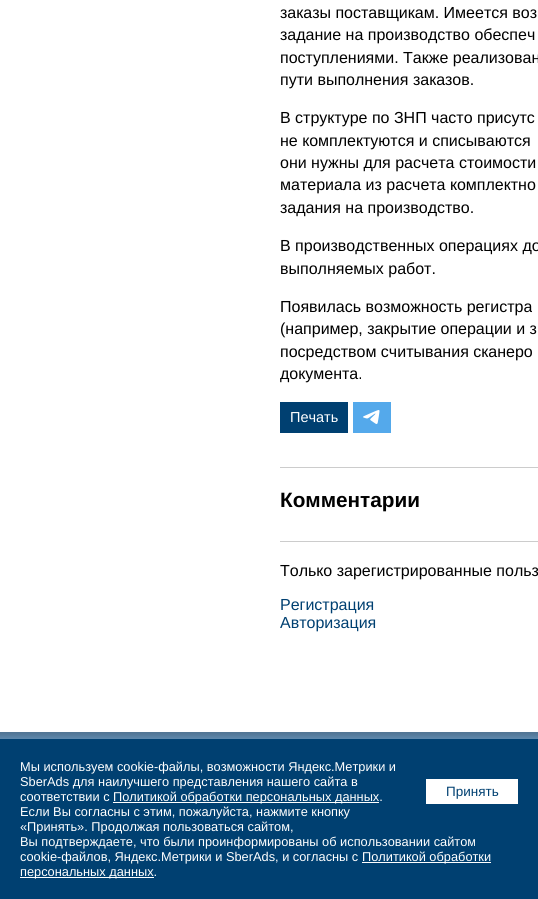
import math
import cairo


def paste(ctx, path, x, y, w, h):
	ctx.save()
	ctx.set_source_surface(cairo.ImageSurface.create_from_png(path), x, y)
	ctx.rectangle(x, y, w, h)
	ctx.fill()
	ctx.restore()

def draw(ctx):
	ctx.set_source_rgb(1, 1, 1)
	ctx.paint()
	ctx.select_font_face('Liberation Sans')
	ctx.set_font_size(16)
	ctx.set_source_rgb(0, 0, 0)
	for x, y, s in [
		(280, 18, 'заказы поставщикам. Имеется воз'),
		(280, 40, 'задание на производство обеспеч'),
		(280, 63, 'поступлениями. Также реализован'),
		(280, 85, 'пути выполнения заказов.'),
		(280, 123, 'В структуре по ЗНП часто присутс'),
		(280, 146, 'не комплектуются и списываются'),
		(280, 168, 'они нужны для расчета стоимости'),
		(280, 190, 'материала из расчета комплектно'),
		(280, 213, 'задания на производство.'),
		(280, 251, 'В производственных операциях до'),
		(280, 274, 'выполняемых работ.'),
		(280, 312, 'Появилась возможность регистра'),
		(280, 334, '(например, закрытие операции и з'),
		(280, 357, 'посредством считывания сканеро'),
		(280, 379, 'документа.'),
	]:
		ctx.move_to(x, y)
		ctx.show_text(s)
	ctx.set_source_rgb(0, 0.251, 0.443)
	ctx.rectangle(280, 402, 68, 31)
	ctx.fill()
	ctx.set_font_size(14.5)
	ctx.set_source_rgb(1, 1, 1)
	ctx.move_to(290, 422)
	ctx.show_text('Печать')
	paste(ctx, 'media/1.png', 353, 402, 38, 31)
	ctx.set_source_rgb(0.8, 0.8, 0.8)
	ctx.rectangle(280, 467, 258, 1)
	ctx.fill()
	ctx.select_font_face('Liberation Sans', cairo.FONT_SLANT_NORMAL, cairo.FONT_WEIGHT_BOLD)
	ctx.set_font_size(20.75)
	ctx.set_source_rgb(0, 0, 0)
	ctx.move_to(280, 507)
	ctx.show_text('Комментарии')
	ctx.set_source_rgb(0.8, 0.8, 0.8)
	ctx.rectangle(280, 541, 258, 1)
	ctx.fill()
	ctx.select_font_face('Liberation Sans')
	ctx.set_font_size(16)
	ctx.set_source_rgb(0, 0, 0)
	ctx.move_to(280, 576)
	ctx.show_text('Только зарегистрированные польз')
	ctx.set_source_rgb(0, 0.251, 0.443)
	ctx.move_to(280, 610)
	ctx.show_text('Регистрация')
	ctx.move_to(280, 628)
	ctx.show_text('Авторизация')
	paste(ctx, 'media/2.png', 0, 732, 538, 7)
	ctx.rectangle(0, 739, 538, 160)
	ctx.fill()
	ctx.set_font_size(12.8)
	ctx.set_source_rgb(1, 1, 1)
	for x, y, s in [
		(20, 771, 'Мы используем cookie-файлы, возможности Яндекс.Метрики и'),
		(20, 786, 'SberAds для наилучшего представления нашего сайта в'),
		(20, 801, 'соответствии с'),
	]:
		ctx.move_to(x, y)
		ctx.show_text(s)
	ctx.rectangle(113, 802, 266, 1)
	ctx.fill()
	ctx.move_to(113, 801)
	ctx.show_text('Политикой обработки персональных данных.')
	ctx.rectangle(426, 779, 92, 25)
	ctx.fill()
	ctx.set_font_size(13.5)
	ctx.set_source_rgb(0, 0.251, 0.443)
	ctx.move_to(446, 796)
	ctx.show_text('Принять')
	ctx.set_font_size(12.8)
	ctx.set_source_rgb(1, 1, 1)
	for x, y, s in [
		(20, 816, 'Если Вы согласны с этим, пожалуйста, нажмите кнопку'),
		(20, 831, '«Принять». Продолжая пользоваться сайтом,'),
		(20, 846, 'Вы подтверждаете, что были проинформированы об использовании сайтом'),
		(20, 861, 'cookie-файлов, Яндекс.Метрики и SberAds, и согласны с'),
	]:
		ctx.move_to(x, y)
		ctx.show_text(s)
	ctx.rectangle(362, 862, 129, 1)
	ctx.fill()
	ctx.move_to(362, 861)
	ctx.show_text('Политикой обработки')
	ctx.rectangle(20, 877, 134, 1)
	ctx.fill()
	ctx.move_to(20, 876)
	ctx.show_text('персональных данных.')


surface = cairo.ImageSurface(cairo.FORMAT_RGB24, 538, 899)
ctx = cairo.Context(surface)
options = cairo.FontOptions()
options.set_hint_metrics(cairo.HINT_METRICS_OFF)
options.set_hint_style(cairo.HINT_STYLE_NONE)
ctx.set_font_options(options)
ctx.set_miter_limit(4)
draw(ctx)
surface.write_to_png('image.png')
